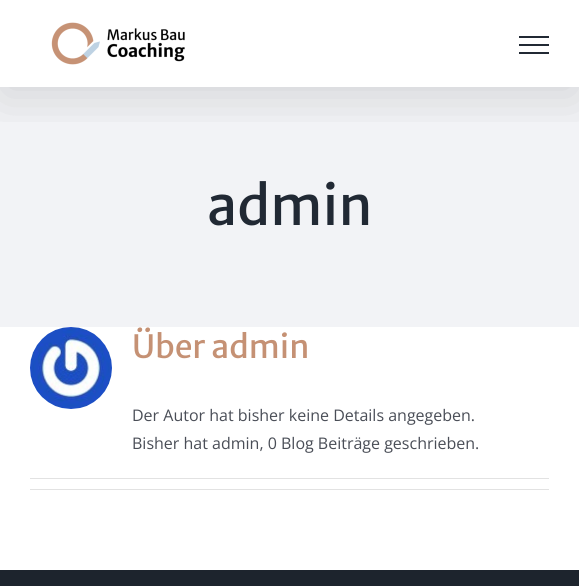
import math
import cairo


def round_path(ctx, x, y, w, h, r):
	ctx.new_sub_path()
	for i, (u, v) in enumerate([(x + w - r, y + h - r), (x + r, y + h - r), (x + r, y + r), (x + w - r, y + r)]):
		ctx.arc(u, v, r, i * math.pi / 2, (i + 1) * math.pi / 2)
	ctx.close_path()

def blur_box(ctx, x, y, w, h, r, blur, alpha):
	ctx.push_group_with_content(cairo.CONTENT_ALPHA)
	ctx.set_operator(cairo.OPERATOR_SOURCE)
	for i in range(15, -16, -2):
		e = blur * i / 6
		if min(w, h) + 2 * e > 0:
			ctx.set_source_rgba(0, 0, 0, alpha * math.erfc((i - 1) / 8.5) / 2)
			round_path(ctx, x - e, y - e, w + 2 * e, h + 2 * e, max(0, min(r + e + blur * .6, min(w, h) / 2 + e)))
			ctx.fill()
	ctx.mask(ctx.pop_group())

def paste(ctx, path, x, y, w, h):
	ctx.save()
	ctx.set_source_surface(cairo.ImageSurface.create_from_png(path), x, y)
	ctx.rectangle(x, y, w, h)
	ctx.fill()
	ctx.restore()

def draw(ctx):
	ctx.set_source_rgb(1, 1, 1)
	ctx.paint()
	ctx.set_source_rgb(0.949, 0.953, 0.961)
	ctx.rectangle(0, 87, 579, 240)
	ctx.fill()
	ctx.save()
	ctx.rectangle(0, 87, 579, 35)
	ctx.clip()
	ctx.set_source_rgb(0, 0, 0)
	blur_box(ctx, 2, 12, 575, 83, 0, 25, 0.14)
	ctx.restore()
	paste(ctx, 'media/1.png', 51, 22, 134, 43)
	ctx.set_source_rgb(0.129, 0.161, 0.204)
	ctx.rectangle(519, 36, 30, 2)
	ctx.rectangle(519, 44, 30, 2)
	ctx.rectangle(519, 52, 30, 2)
	ctx.fill()
	ctx.select_font_face('Merriweather Sans')
	ctx.set_font_size(54)
	ctx.move_to(207, 225)
	ctx.show_text('admin')
	paste(ctx, 'media/2.png', 30, 327, 82, 82)
	ctx.set_font_size(32)
	ctx.set_source_rgb(0.773, 0.569, 0.455)
	ctx.move_to(132, 358)
	ctx.show_text('Über admin')
	ctx.select_font_face('Open Sans')
	ctx.set_font_size(16)
	ctx.set_source_rgb(0.29, 0.306, 0.341)
	ctx.move_to(132, 421)
	ctx.show_text('Der Autor hat bisher keine Details angegeben.')
	ctx.move_to(132, 449)
	ctx.show_text('Bisher hat admin, 0 Blog Beiträge geschrieben.')
	ctx.set_source_rgb(0.886, 0.886, 0.886)
	ctx.rectangle(30, 478, 519, 1)
	ctx.rectangle(30, 489, 519, 1)
	ctx.fill()
	ctx.set_source_rgb(0.114, 0.141, 0.176)
	ctx.rectangle(0, 570, 579, 16)
	ctx.fill()


surface = cairo.ImageSurface(cairo.FORMAT_RGB24, 579, 586)
ctx = cairo.Context(surface)
options = cairo.FontOptions()
options.set_hint_metrics(cairo.HINT_METRICS_OFF)
options.set_hint_style(cairo.HINT_STYLE_NONE)
ctx.set_font_options(options)
ctx.set_miter_limit(4)
draw(ctx)
surface.write_to_png('image.png')
